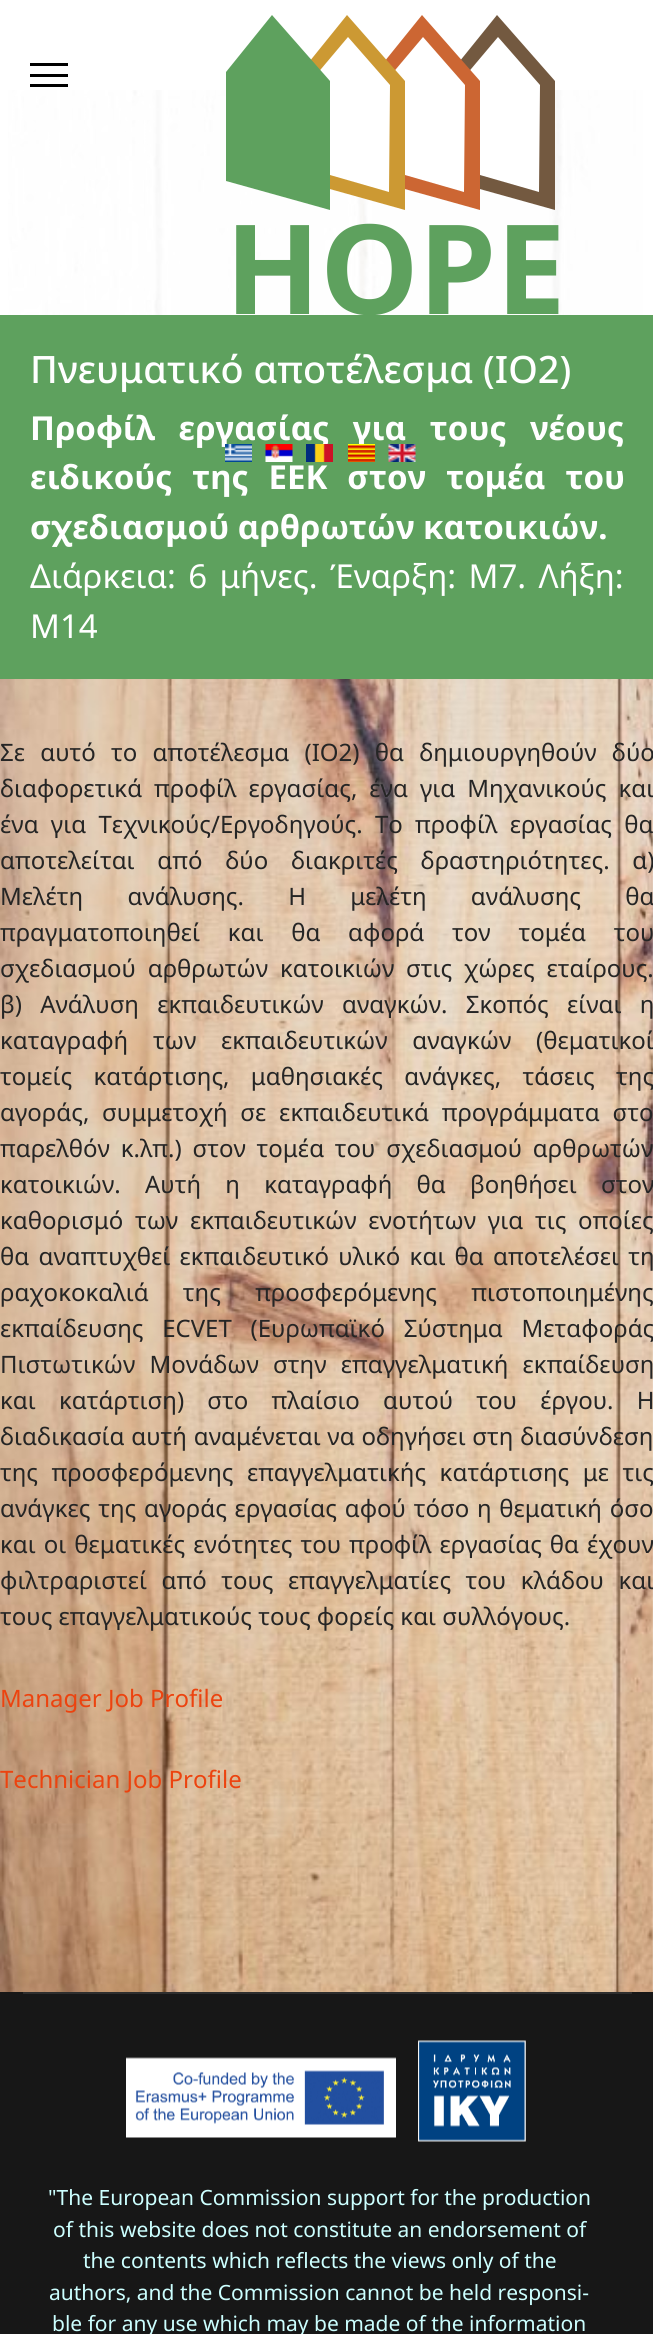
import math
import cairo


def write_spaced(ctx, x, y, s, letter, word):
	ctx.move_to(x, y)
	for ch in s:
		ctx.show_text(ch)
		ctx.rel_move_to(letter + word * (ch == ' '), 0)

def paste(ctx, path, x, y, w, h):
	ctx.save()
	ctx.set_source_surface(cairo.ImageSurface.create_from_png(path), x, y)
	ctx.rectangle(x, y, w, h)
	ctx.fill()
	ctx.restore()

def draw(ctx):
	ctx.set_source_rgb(1, 1, 1)
	ctx.paint()
	paste(ctx, 'media/1.png', 8, 90, 635, 225)
	ctx.set_source_rgb(0, 0, 0)
	ctx.rectangle(30, 63, 38, 3)
	ctx.rectangle(30, 74, 38, 3)
	ctx.rectangle(30, 84, 38, 3)
	ctx.fill()
	ctx.set_source_rgb(0.451, 0.349, 0.251)
	ctx.new_path()
	ctx.move_to(497, 15)
	ctx.line_to(451, 72)
	ctx.line_to(451, 181)
	ctx.line_to(555, 210)
	ctx.line_to(555, 81)
	ctx.close_path()
	ctx.fill()
	ctx.set_source_rgb(1, 1, 1)
	ctx.new_path()
	ctx.move_to(498, 37)
	ctx.line_to(466, 75)
	ctx.line_to(466, 171)
	ctx.line_to(539, 192)
	ctx.line_to(540, 85)
	ctx.close_path()
	ctx.fill()
	ctx.set_source_rgb(0.8, 0.4, 0.2)
	ctx.new_path()
	ctx.move_to(422, 15)
	ctx.line_to(376, 72)
	ctx.line_to(376, 181)
	ctx.line_to(480, 210)
	ctx.line_to(480, 81)
	ctx.close_path()
	ctx.fill()
	ctx.set_source_rgb(1, 1, 1)
	ctx.new_path()
	ctx.move_to(423, 37)
	ctx.line_to(391, 75)
	ctx.line_to(391, 171)
	ctx.line_to(464, 192)
	ctx.line_to(465, 85)
	ctx.close_path()
	ctx.fill()
	ctx.set_source_rgb(0.8, 0.6, 0.2)
	ctx.new_path()
	ctx.move_to(347, 15)
	ctx.line_to(301, 72)
	ctx.line_to(301, 181)
	ctx.line_to(405, 210)
	ctx.line_to(405, 81)
	ctx.close_path()
	ctx.fill()
	ctx.set_source_rgb(1, 1, 1)
	ctx.new_path()
	ctx.move_to(348, 37)
	ctx.line_to(316, 75)
	ctx.line_to(316, 171)
	ctx.line_to(389, 192)
	ctx.line_to(390, 85)
	ctx.close_path()
	ctx.fill()
	ctx.set_source_rgb(0.369, 0.631, 0.369)
	ctx.new_path()
	ctx.move_to(272, 15)
	ctx.line_to(226, 72)
	ctx.line_to(226, 181)
	ctx.line_to(330, 210)
	ctx.line_to(330, 81)
	ctx.close_path()
	ctx.fill()
	ctx.rectangle(0, 315, 653, 365)
	ctx.fill()
	ctx.select_font_face('Noto Sans', cairo.FONT_SLANT_NORMAL, cairo.FONT_WEIGHT_BOLD)
	ctx.set_font_size(124.5)
	ctx.move_to(225, 314)
	ctx.show_text('HOPE')
	ctx.set_font_size(33)
	ctx.set_source_rgb(1, 1, 1)
	write_spaced(ctx, 30, 440, 'Προφίλ εργασίας για τους νέους', 0, 15)
	paste(ctx, 'media/2.png', 225, 444, 27, 18)
	paste(ctx, 'media/3.png', 265, 444, 28, 18)
	paste(ctx, 'media/4.png', 306, 444, 27, 18)
	paste(ctx, 'media/5.png', 348, 444, 27, 18)
	paste(ctx, 'media/6.png', 388, 444, 28, 18)
	ctx.select_font_face('Noto Sans Medium')
	ctx.set_font_size(37.75)
	ctx.move_to(30, 383)
	ctx.show_text('Πνευματικό αποτέλεσμα (IO2)')
	ctx.select_font_face('Noto Sans', cairo.FONT_SLANT_NORMAL, cairo.FONT_WEIGHT_BOLD)
	ctx.set_font_size(33)
	write_spaced(ctx, 30, 489, 'ειδικούς της ΕΕΚ στον τομέα του', 0, 11.5)
	ctx.move_to(30, 539)
	ctx.show_text('σχεδιασμού αρθρωτών κατοικιών.')
	ctx.select_font_face('Noto Sans')
	write_spaced(ctx, 30, 588, 'Διάρκεια: 6 μήνες. Έναρξη: Μ7. Λήξη:', 0, 3.75)
	ctx.move_to(30, 638)
	ctx.show_text('Μ14')
	paste(ctx, 'media/7.png', 0, 679, 653, 1313)
	ctx.set_font_size(24)
	ctx.set_source_rgb(0.145, 0.145, 0.145)
	write_spaced(ctx, 0, 761, 'Σε αυτό το αποτέλεσμα (IO2) θα δημιουργηθούν δύο', 0, 9)
	write_spaced(ctx, 0, 797, 'διαφορετικά προφίλ εργασίας, ένα για Μηχανικούς και', 0, 5.75)
	write_spaced(ctx, 0, 833, 'ένα για Τεχνικούς/Εργοδηγούς. Το προφίλ εργασίας θα', 0, 6)
	write_spaced(ctx, 0, 869, 'αποτελείται από δύο διακριτές δραστηριότητες. α)', 0, 16.5)
	write_spaced(ctx, 0, 905, 'Μελέτη ανάλυσης. Η μελέτη ανάλυσης θα', 0, 38)
	write_spaced(ctx, 0, 941, 'πραγματοποιηθεί και θα αφορά τον τομέα του', 0, 21.5)
	write_spaced(ctx, 0, 977, 'σχεδιασμού αρθρωτών κατοικιών στις χώρες εταίρους.', 0, 5.5)
	write_spaced(ctx, 0, 1013, 'β) Ανάλυση εκπαιδευτικών αναγκών. Σκοπός είναι η', 0, 12)
	write_spaced(ctx, 0, 1049, 'καταγραφή των εκπαιδευτικών αναγκών (θεματικοί', 0, 18.5)
	write_spaced(ctx, 0, 1085, 'τομείς κατάρτισης, μαθησιακές ανάγκες, τάσεις της', 0, 15)
	write_spaced(ctx, 0, 1121, 'αγοράς, συμμετοχή σε εκπαιδευτικά προγράμματα στο', 0, 6.5)
	write_spaced(ctx, 0, 1157, 'παρελθόν κ.λπ.) στον τομέα του σχεδιασμού αρθρωτών', 0, 4.5)
	write_spaced(ctx, 0, 1193, 'κατοικιών. Αυτή η καταγραφή θα βοηθήσει στον', 0, 18)
	write_spaced(ctx, 0, 1229, 'καθορισμό των εκπαιδευτικών ενοτήτων για τις οποίες', 0, 5.5)
	write_spaced(ctx, 0, 1265, 'θα αναπτυχθεί εκπαιδευτικό υλικό και θα αποτελέσει τη', 0, 3)
	write_spaced(ctx, 0, 1301, 'ραχοκοκαλιά της προσφερόμενης πιστοποιημένης', 0, 28)
	write_spaced(ctx, 0, 1337, 'εκπαίδευσης ECVET (Ευρωπαϊκό Σύστημα Μεταφοράς', 0, 12.5)
	write_spaced(ctx, 0, 1373, 'Πιστωτικών Μονάδων στην επαγγελματική εκπαίδευση', 0, 8)
	write_spaced(ctx, 0, 1409, 'και κατάρτιση) στο πλαίσιο αυτού του έργου. Η', 0, 17)
	write_spaced(ctx, 0, 1445, 'διαδικασία αυτή αναμένεται να οδηγήσει στη διασύνδεση', 0, 0.5)
	write_spaced(ctx, 0, 1481, 'της προσφερόμενης επαγγελματικής κατάρτισης με τις', 0, 7.25)
	write_spaced(ctx, 0, 1517, 'ανάγκες της αγοράς εργασίας αφού τόσο η θεματική όσο', 0, 1.5)
	write_spaced(ctx, 0, 1553, 'και οι θεματικές ενότητες του προφίλ εργασίας θα έχουν', 0, 1.75)
	write_spaced(ctx, 0, 1589, 'φιλτραριστεί από τους επαγγελματίες του κλάδου και', 0, 8.25)
	ctx.move_to(0, 1625)
	ctx.show_text('τους επαγγελματικούς τους φορείς και συλλόγους.')
	ctx.set_source_rgb(0.925, 0.263, 0.059)
	ctx.move_to(0, 1707)
	ctx.show_text('Manager Job Profile')
	ctx.move_to(0, 1788)
	ctx.show_text('Technician Job Profile')
	ctx.set_source_rgb(0.09, 0.09, 0.09)
	ctx.rectangle(0, 1992, 653, 342)
	ctx.fill()
	ctx.set_source_rgb(0.18, 0.18, 0.18)
	ctx.rectangle(23, 1992, 609, 2)
	ctx.fill()
	paste(ctx, 'media/8.png', 126, 2057, 270, 81)
	paste(ctx, 'media/9.png', 418, 2040, 108, 102)
	ctx.set_font_size(21)
	ctx.set_source_rgb(0.8, 1, 1)
	for x, y, s in [
		(48, 2205, '"The European Commission support for the production'),
		(53, 2237, 'of this website does not constitute an endorsement of'),
		(83, 2268, 'the contents which reflects the views only of the'),
		(49, 2300, 'authors, and the Commission cannot be held responsi-'),
		(52, 2331, 'ble for any use which may be made of the information'),
	]:
		ctx.move_to(x, y)
		ctx.show_text(s)


surface = cairo.ImageSurface(cairo.FORMAT_RGB24, 653, 2334)
ctx = cairo.Context(surface)
options = cairo.FontOptions()
options.set_hint_metrics(cairo.HINT_METRICS_OFF)
options.set_hint_style(cairo.HINT_STYLE_NONE)
ctx.set_font_options(options)
ctx.set_miter_limit(4)
draw(ctx)
surface.write_to_png('image.png')
